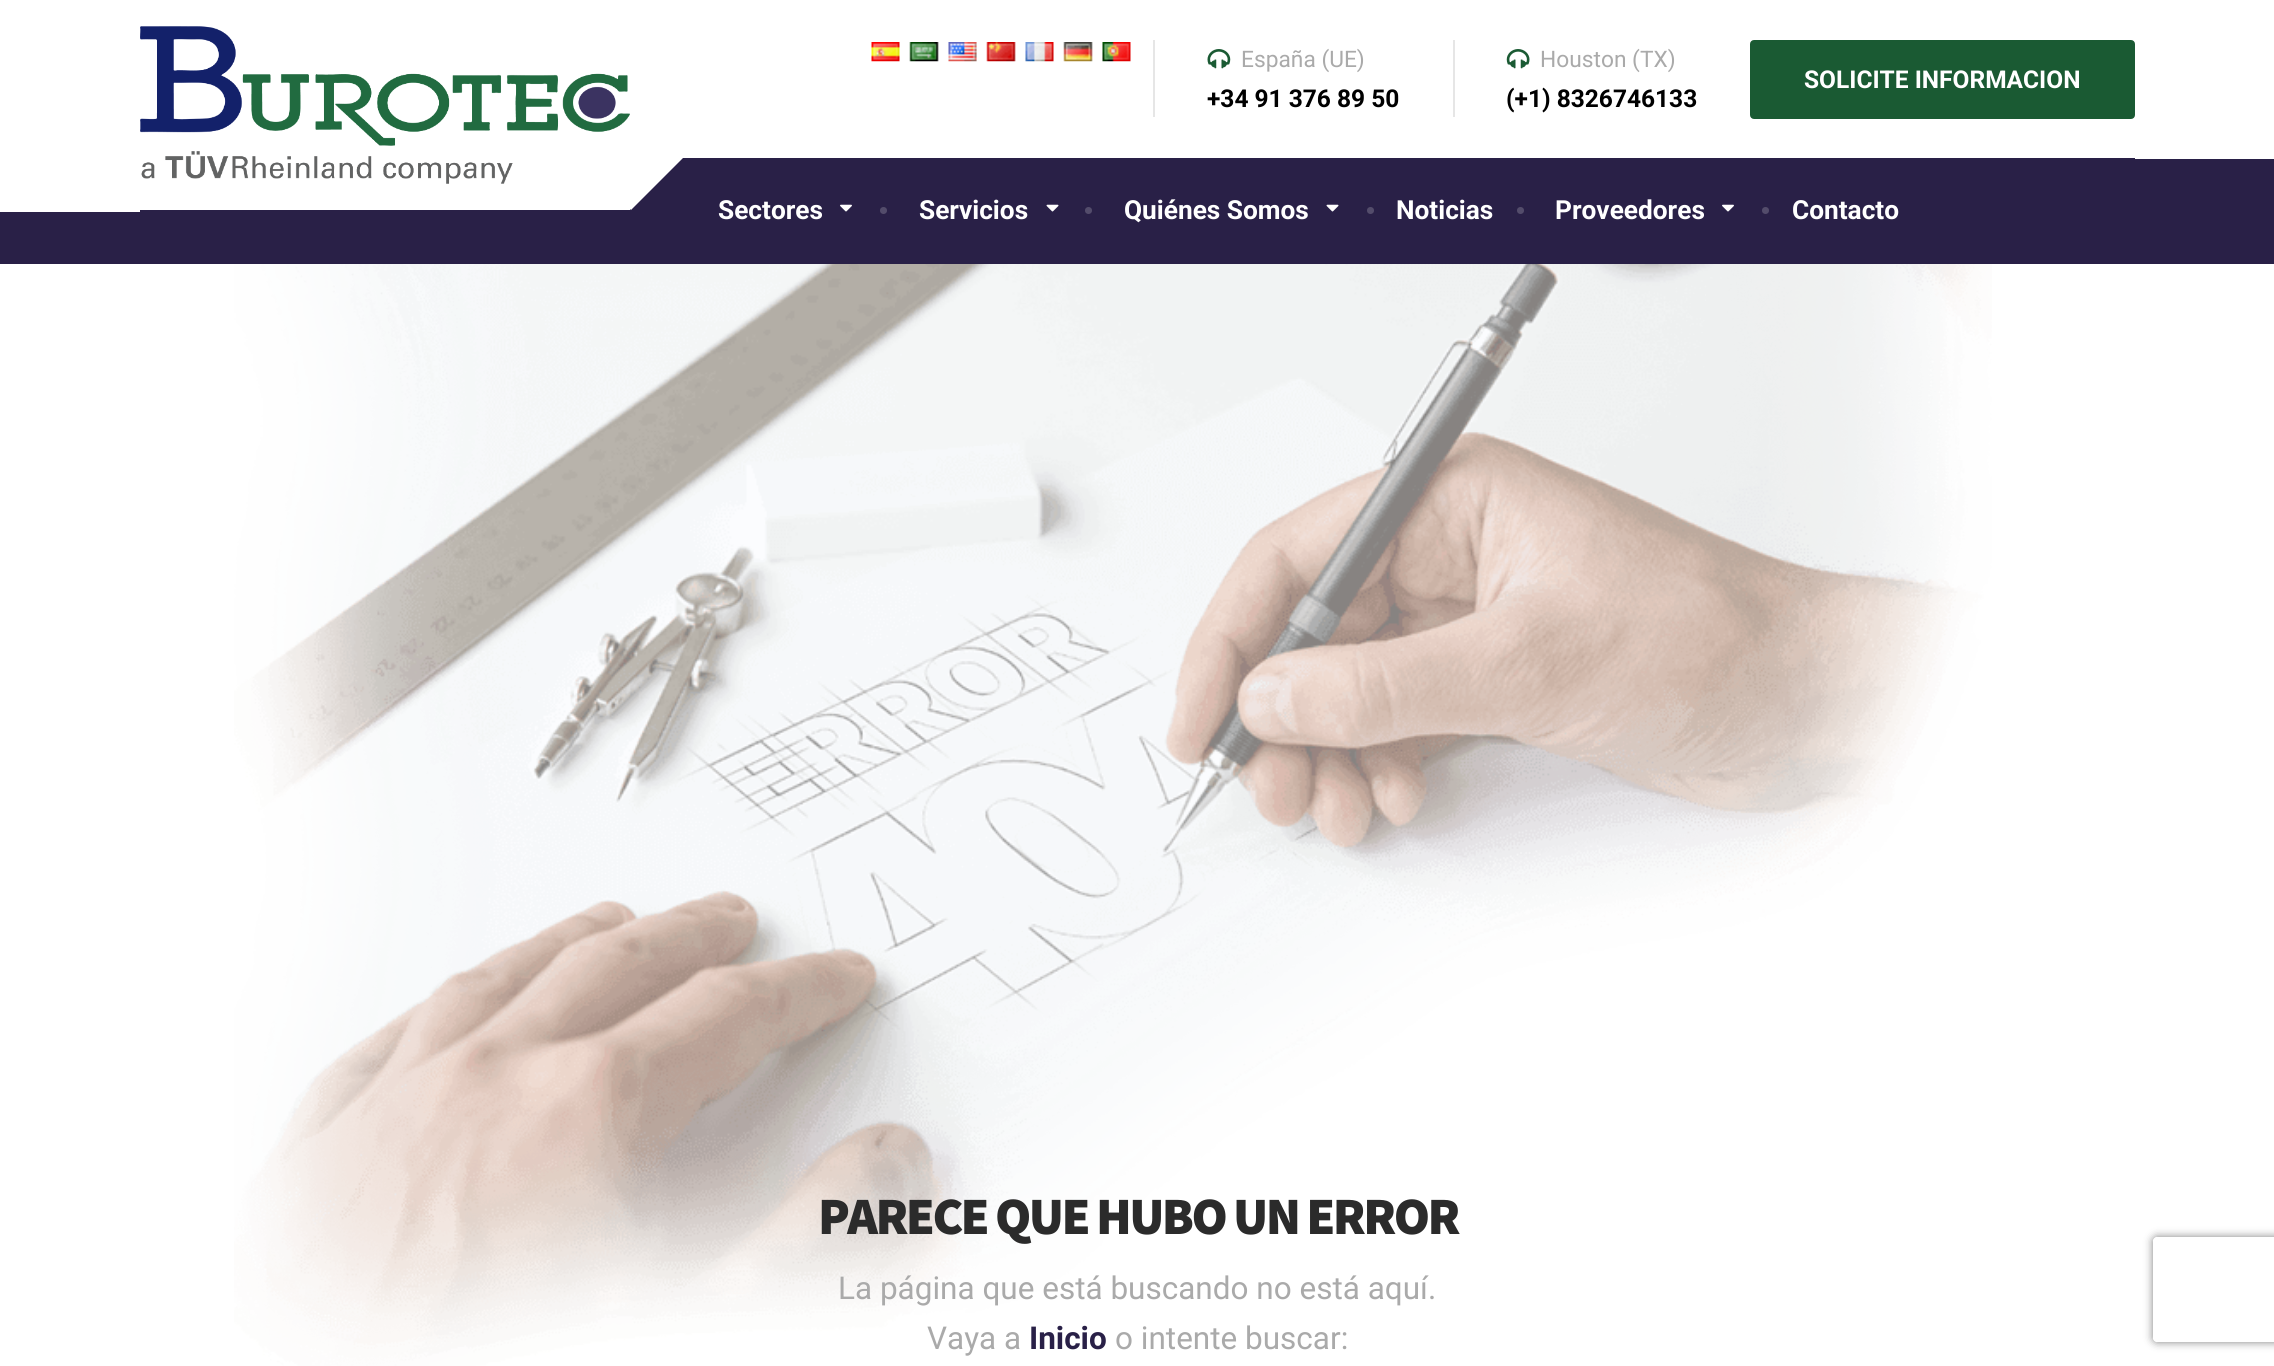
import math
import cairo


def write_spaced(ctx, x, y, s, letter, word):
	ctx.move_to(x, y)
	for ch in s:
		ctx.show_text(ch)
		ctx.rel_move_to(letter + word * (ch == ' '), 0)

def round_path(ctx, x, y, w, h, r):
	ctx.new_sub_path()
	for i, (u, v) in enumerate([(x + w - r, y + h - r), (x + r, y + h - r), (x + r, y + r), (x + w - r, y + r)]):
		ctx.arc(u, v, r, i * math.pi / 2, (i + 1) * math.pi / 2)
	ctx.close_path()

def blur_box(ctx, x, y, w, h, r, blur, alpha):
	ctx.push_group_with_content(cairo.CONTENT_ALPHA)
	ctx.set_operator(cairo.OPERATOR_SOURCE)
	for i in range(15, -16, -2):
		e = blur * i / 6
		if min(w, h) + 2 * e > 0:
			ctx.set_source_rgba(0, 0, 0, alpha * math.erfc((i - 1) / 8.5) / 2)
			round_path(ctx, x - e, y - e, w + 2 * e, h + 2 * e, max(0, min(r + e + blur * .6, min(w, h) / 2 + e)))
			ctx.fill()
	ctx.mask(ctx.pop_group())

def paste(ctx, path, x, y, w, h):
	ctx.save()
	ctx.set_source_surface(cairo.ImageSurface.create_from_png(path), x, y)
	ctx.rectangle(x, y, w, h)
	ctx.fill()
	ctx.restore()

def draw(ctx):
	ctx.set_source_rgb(1, 1, 1)
	ctx.paint()
	ctx.set_source_rgb(0.161, 0.125, 0.278)
	ctx.rectangle(0, 158, 2274, 106)
	ctx.fill()
	ctx.set_source_rgb(1, 1, 1)
	ctx.rectangle(0, 158, 140, 54)
	ctx.rectangle(140, 158, 490, 52)
	ctx.fill()
	ctx.new_path()
	ctx.move_to(684, 157)
	ctx.line_to(631, 210)
	ctx.line_to(578, 157)
	ctx.line_to(631, 103)
	ctx.close_path()
	ctx.fill()
	paste(ctx, 'media/1.png', 140, 26, 490, 158)
	paste(ctx, 'media/2.png', 871, 42, 29, 20)
	paste(ctx, 'media/3.png', 909, 42, 30, 20)
	paste(ctx, 'media/4.png', 948, 42, 29, 20)
	paste(ctx, 'media/5.png', 986, 42, 30, 20)
	paste(ctx, 'media/6.png', 1025, 42, 29, 20)
	paste(ctx, 'media/7.png', 1063, 42, 30, 20)
	paste(ctx, 'media/8.png', 1102, 42, 29, 20)
	ctx.set_source_rgb(0.902, 0.902, 0.902)
	ctx.rectangle(1153, 40, 2, 77)
	ctx.fill()
	paste(ctx, 'media/9.png', 1207, 49, 24, 20)
	ctx.select_font_face('Roboto')
	ctx.set_font_size(22.75)
	ctx.set_source_rgb(0.667, 0.667, 0.667)
	ctx.move_to(1241, 67)
	ctx.show_text('España (UE)')
	ctx.select_font_face('Roboto', cairo.FONT_SLANT_NORMAL, cairo.FONT_WEIGHT_BOLD)
	ctx.set_font_size(24.5)
	ctx.set_source_rgb(0, 0, 0)
	ctx.move_to(1207, 107)
	ctx.show_text('+34 91 376 89 50')
	ctx.set_source_rgb(0.902, 0.902, 0.902)
	ctx.rectangle(1453, 40, 2, 77)
	ctx.fill()
	paste(ctx, 'media/10.png', 1506, 49, 24, 20)
	ctx.select_font_face('Roboto')
	ctx.set_font_size(22.75)
	ctx.set_source_rgb(0.667, 0.667, 0.667)
	ctx.move_to(1540, 67)
	ctx.show_text('Houston (TX)')
	ctx.select_font_face('Roboto', cairo.FONT_SLANT_NORMAL, cairo.FONT_WEIGHT_BOLD)
	ctx.set_font_size(24.5)
	ctx.set_source_rgb(0, 0, 0)
	ctx.move_to(1506, 107)
	ctx.show_text('(+1) 8326746133')
	ctx.set_source_rgb(0.102, 0.353, 0.2)
	round_path(ctx, 1751, 41, 383, 77, 3)
	ctx.fill_preserve()
	ctx.stroke()
	ctx.set_source_rgb(1, 1, 1)
	ctx.move_to(1804, 88)
	ctx.show_text('SOLICITE INFORMACION')
	ctx.set_font_size(26.25)
	ctx.move_to(718, 219)
	ctx.show_text('Sectores')
	ctx.set_source_rgb(0.325, 0.298, 0.42)
	ctx.new_path()
	ctx.arc(883.5, 210.5, 3.5, 0, 2 * math.pi)
	ctx.fill()
	paste(ctx, 'media/11.png', 840, 204, 12, 8)
	ctx.set_source_rgb(1, 1, 1)
	ctx.move_to(919, 219)
	ctx.show_text('Servicios')
	ctx.set_source_rgb(0.325, 0.298, 0.42)
	ctx.new_path()
	ctx.arc(1088.5, 210.5, 3.5, 0, 2 * math.pi)
	ctx.fill()
	paste(ctx, 'media/12.png', 1046, 204, 13, 8)
	ctx.set_source_rgb(1, 1, 1)
	ctx.move_to(1124, 219)
	ctx.show_text('Quiénes Somos')
	ctx.set_source_rgb(0.325, 0.298, 0.42)
	ctx.new_path()
	ctx.arc(1370.5, 210.5, 3.5, 0, 2 * math.pi)
	ctx.fill()
	paste(ctx, 'media/12.png', 1326, 204, 13, 8)
	ctx.set_source_rgb(1, 1, 1)
	ctx.move_to(1396, 219)
	ctx.show_text('Noticias')
	ctx.set_source_rgb(0.325, 0.298, 0.42)
	ctx.new_path()
	ctx.arc(1520.5, 210.5, 3.5, 0, 2 * math.pi)
	ctx.fill()
	ctx.set_source_rgb(1, 1, 1)
	ctx.move_to(1555, 219)
	ctx.show_text('Proveedores')
	ctx.set_source_rgb(0.325, 0.298, 0.42)
	ctx.new_path()
	ctx.arc(1765.5, 210.5, 3.5, 0, 2 * math.pi)
	ctx.fill()
	paste(ctx, 'media/11.png', 1722, 204, 12, 8)
	ctx.set_source_rgb(1, 1, 1)
	ctx.move_to(1792, 219)
	ctx.show_text('Contacto')
	ctx.rectangle(2135, 158, 139, 1)
	ctx.fill()
	paste(ctx, 'media/13.png', 234, 264, 1758, 1102)
	ctx.select_font_face('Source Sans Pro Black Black')
	ctx.set_font_size(52.5)
	ctx.set_source_rgb(0.169, 0.169, 0.169)
	write_spaced(ctx, 818, 1234, 'PARECE QUE HUBO UN ERROR', -2.6, 0)
	ctx.select_font_face('Roboto')
	ctx.set_font_size(31.5)
	ctx.set_source_rgb(0.667, 0.667, 0.667)
	ctx.move_to(838, 1299)
	ctx.show_text('La página que está buscando no está aquí.')
	ctx.move_to(927, 1349)
	ctx.show_text('Vaya a')
	ctx.select_font_face('Roboto', cairo.FONT_SLANT_NORMAL, cairo.FONT_WEIGHT_BOLD)
	ctx.set_source_rgb(0.161, 0.125, 0.278)
	ctx.move_to(1029, 1349)
	ctx.show_text('Inicio')
	ctx.select_font_face('Roboto')
	ctx.set_source_rgb(0.667, 0.667, 0.667)
	ctx.move_to(1115, 1349)
	ctx.show_text('o intente buscar:')
	ctx.save()
	ctx.set_fill_rule(cairo.FILL_RULE_EVEN_ODD)
	ctx.new_path()
	ctx.move_to(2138, 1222)
	ctx.line_to(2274, 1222)
	ctx.line_to(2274, 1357)
	ctx.line_to(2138, 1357)
	ctx.close_path()
	ctx.move_to(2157, 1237)
	ctx.line_to(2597, 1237)
	ctx.curve_to(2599, 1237, 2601, 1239, 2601, 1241)
	ctx.line_to(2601, 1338)
	ctx.curve_to(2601, 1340, 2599, 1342, 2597, 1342)
	ctx.line_to(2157, 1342)
	ctx.curve_to(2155, 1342, 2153, 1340, 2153, 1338)
	ctx.line_to(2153, 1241)
	ctx.curve_to(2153, 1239, 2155, 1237, 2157, 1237)
	ctx.close_path()
	ctx.clip()
	ctx.set_source_rgb(0.502, 0.502, 0.502)
	blur_box(ctx, 2153, 1237, 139, 105, 4, 4.5, 1)
	ctx.restore()


surface = cairo.ImageSurface(cairo.FORMAT_RGB24, 2274, 1366)
ctx = cairo.Context(surface)
options = cairo.FontOptions()
options.set_hint_metrics(cairo.HINT_METRICS_OFF)
options.set_hint_style(cairo.HINT_STYLE_NONE)
ctx.set_font_options(options)
ctx.set_miter_limit(4)
draw(ctx)
surface.write_to_png('image.png')
